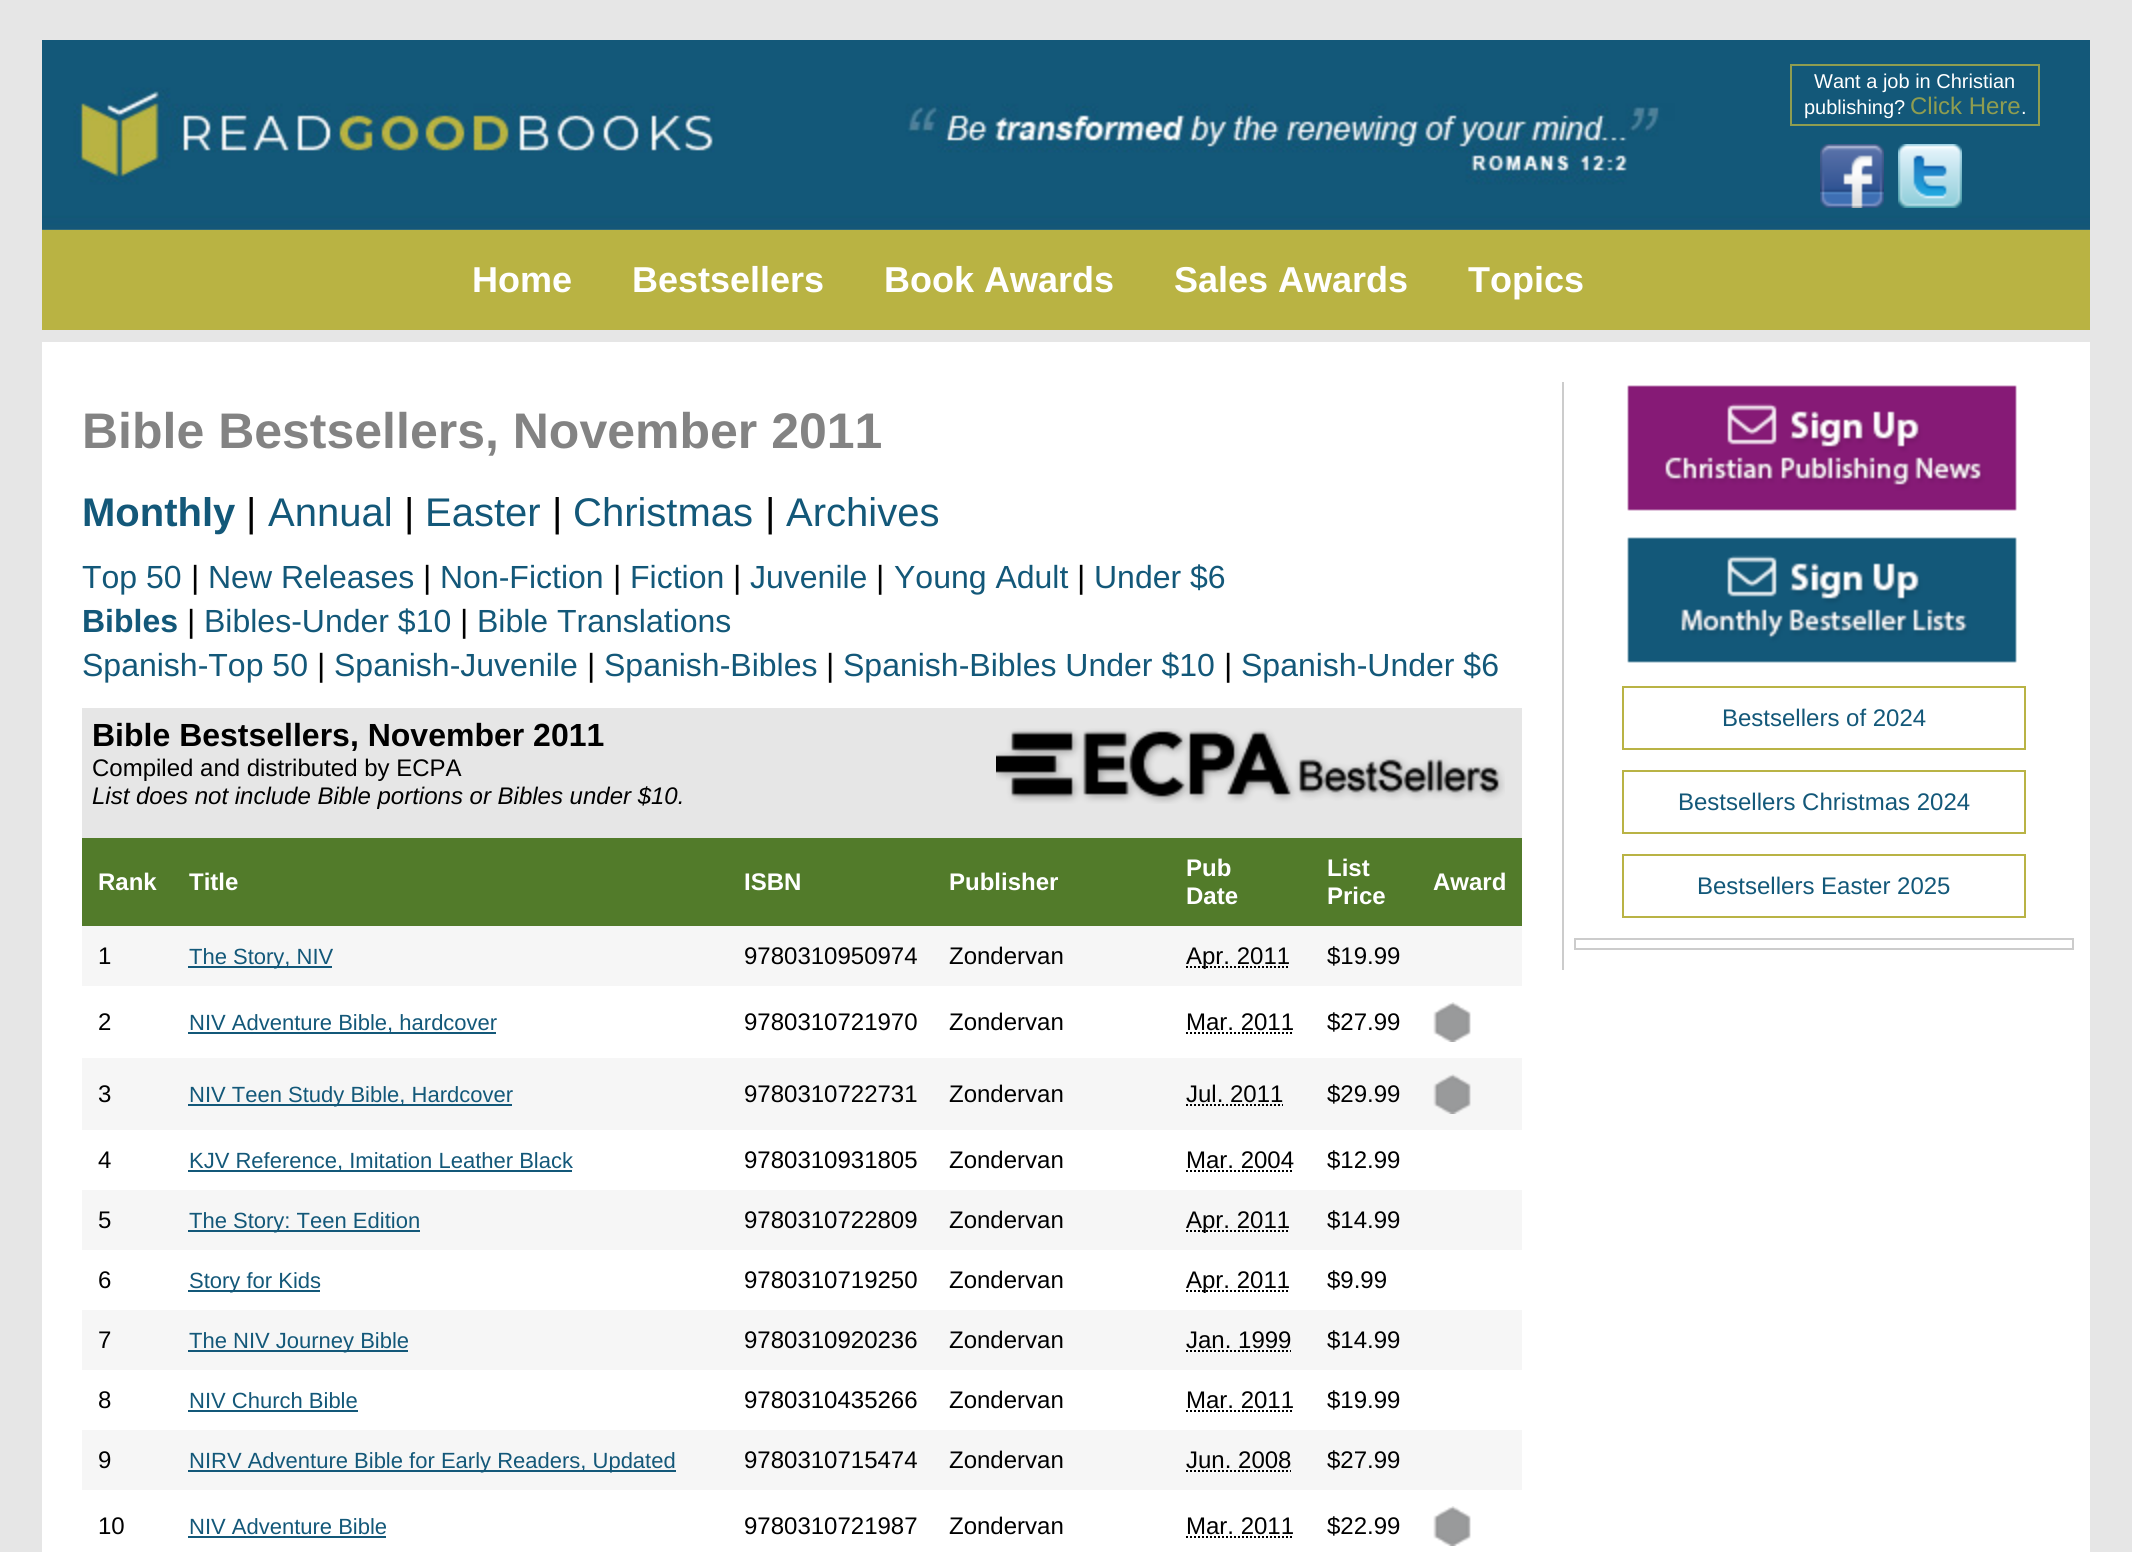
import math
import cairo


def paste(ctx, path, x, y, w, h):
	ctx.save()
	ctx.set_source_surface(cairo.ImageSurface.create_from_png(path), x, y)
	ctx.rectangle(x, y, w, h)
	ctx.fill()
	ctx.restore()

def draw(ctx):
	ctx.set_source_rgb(0.902, 0.902, 0.902)
	ctx.paint()
	paste(ctx, 'media/1.png', 42, 40, 2048, 190)
	ctx.rectangle(1791, 65, 248, 60)
	ctx.set_source_rgb(0.561, 0.616, 0.314)
	ctx.stroke()
	ctx.select_font_face('Liberation Sans')
	ctx.set_font_size(20)
	ctx.set_source_rgb(1, 1, 1)
	ctx.move_to(1814, 88)
	ctx.show_text('Want a job in Christian')
	ctx.move_to(1804, 114)
	ctx.show_text('publishing?')
	ctx.set_font_size(24)
	ctx.set_source_rgb(0.561, 0.616, 0.314)
	ctx.move_to(1910, 114)
	ctx.show_text('Click Here')
	ctx.set_font_size(20)
	ctx.set_source_rgb(1, 1, 1)
	ctx.move_to(2021, 114)
	ctx.show_text('.')
	paste(ctx, 'media/2.png', 1820, 144, 64, 64)
	paste(ctx, 'media/3.png', 1898, 144, 64, 64)
	ctx.set_source_rgb(0.725, 0.702, 0.263)
	ctx.rectangle(42, 230, 2048, 100)
	ctx.fill()
	ctx.select_font_face('Liberation Sans', cairo.FONT_SLANT_NORMAL, cairo.FONT_WEIGHT_BOLD)
	ctx.set_font_size(36)
	ctx.set_source_rgb(1, 1, 1)
	for x, y, s in [
		(472, 292, 'Home'),
		(632, 292, 'Bestsellers'),
		(884, 292, 'Book Awards'),
		(1174, 292, 'Sales Awards'),
		(1468, 292, 'Topics'),
	]:
		ctx.move_to(x, y)
		ctx.show_text(s)
	ctx.rectangle(42, 342, 2048, 1210)
	ctx.fill()
	ctx.set_font_size(50)
	ctx.set_source_rgb(0.514, 0.514, 0.514)
	ctx.move_to(82, 448)
	ctx.show_text('Bible Bestsellers, November 2011')
	ctx.set_font_size(40)
	ctx.set_source_rgb(0.075, 0.345, 0.475)
	ctx.move_to(82, 526)
	ctx.show_text('Monthly')
	ctx.select_font_face('Liberation Sans')
	ctx.set_source_rgb(0, 0, 0)
	ctx.move_to(246, 526)
	ctx.show_text('|')
	ctx.set_source_rgb(0.075, 0.345, 0.475)
	ctx.move_to(268, 526)
	ctx.show_text('Annual')
	ctx.set_source_rgb(0, 0, 0)
	ctx.move_to(404, 526)
	ctx.show_text('|')
	ctx.set_source_rgb(0.075, 0.345, 0.475)
	ctx.move_to(425, 526)
	ctx.show_text('Easter')
	ctx.set_source_rgb(0, 0, 0)
	ctx.move_to(552, 526)
	ctx.show_text('|')
	ctx.set_source_rgb(0.075, 0.345, 0.475)
	ctx.move_to(573, 526)
	ctx.show_text('Christmas')
	ctx.set_source_rgb(0, 0, 0)
	ctx.move_to(765, 526)
	ctx.show_text('|')
	ctx.set_source_rgb(0.075, 0.345, 0.475)
	ctx.move_to(786, 526)
	ctx.show_text('Archives')
	ctx.set_font_size(32)
	ctx.move_to(82, 588)
	ctx.show_text('Top 50')
	ctx.set_source_rgb(0, 0, 0)
	ctx.move_to(191, 588)
	ctx.show_text('|')
	ctx.set_source_rgb(0.075, 0.345, 0.475)
	ctx.move_to(208, 588)
	ctx.show_text('New Releases')
	ctx.set_source_rgb(0, 0, 0)
	ctx.move_to(423, 588)
	ctx.show_text('|')
	ctx.set_source_rgb(0.075, 0.345, 0.475)
	ctx.move_to(440, 588)
	ctx.show_text('Non-Fiction')
	ctx.set_source_rgb(0, 0, 0)
	ctx.move_to(613, 588)
	ctx.show_text('|')
	ctx.set_source_rgb(0.075, 0.345, 0.475)
	ctx.move_to(630, 588)
	ctx.show_text('Fiction')
	ctx.set_source_rgb(0, 0, 0)
	ctx.move_to(733, 588)
	ctx.show_text('|')
	ctx.set_source_rgb(0.075, 0.345, 0.475)
	ctx.move_to(750, 588)
	ctx.show_text('Juvenile')
	ctx.set_source_rgb(0, 0, 0)
	ctx.move_to(876, 588)
	ctx.show_text('|')
	ctx.set_source_rgb(0.075, 0.345, 0.475)
	ctx.move_to(894, 588)
	ctx.show_text('Young Adult')
	ctx.set_source_rgb(0, 0, 0)
	ctx.move_to(1077, 588)
	ctx.show_text('|')
	ctx.set_source_rgb(0.075, 0.345, 0.475)
	ctx.move_to(1094, 588)
	ctx.show_text('Under $6')
	ctx.select_font_face('Liberation Sans', cairo.FONT_SLANT_NORMAL, cairo.FONT_WEIGHT_BOLD)
	ctx.move_to(82, 632)
	ctx.show_text('Bibles')
	ctx.select_font_face('Liberation Sans')
	ctx.set_source_rgb(0, 0, 0)
	ctx.move_to(187, 632)
	ctx.show_text('|')
	ctx.set_source_rgb(0.075, 0.345, 0.475)
	ctx.move_to(204, 632)
	ctx.show_text('Bibles-Under $10')
	ctx.set_source_rgb(0, 0, 0)
	ctx.move_to(460, 632)
	ctx.show_text('|')
	ctx.set_source_rgb(0.075, 0.345, 0.475)
	ctx.move_to(477, 632)
	ctx.show_text('Bible Translations')
	ctx.move_to(82, 676)
	ctx.show_text('Spanish-Top 50')
	ctx.set_source_rgb(0, 0, 0)
	ctx.move_to(317, 676)
	ctx.show_text('|')
	ctx.set_source_rgb(0.075, 0.345, 0.475)
	ctx.move_to(334, 676)
	ctx.show_text('Spanish-Juvenile')
	ctx.set_source_rgb(0, 0, 0)
	ctx.move_to(587, 676)
	ctx.show_text('|')
	ctx.set_source_rgb(0.075, 0.345, 0.475)
	ctx.move_to(604, 676)
	ctx.show_text('Spanish-Bibles')
	ctx.set_source_rgb(0, 0, 0)
	ctx.move_to(826, 676)
	ctx.show_text('|')
	ctx.set_source_rgb(0.075, 0.345, 0.475)
	ctx.move_to(843, 676)
	ctx.show_text('Spanish-Bibles Under $10')
	ctx.set_source_rgb(0, 0, 0)
	ctx.move_to(1224, 676)
	ctx.show_text('|')
	ctx.set_source_rgb(0.075, 0.345, 0.475)
	ctx.move_to(1241, 676)
	ctx.show_text('Spanish-Under $6')
	ctx.set_source_rgb(0.902, 0.902, 0.902)
	ctx.rectangle(82, 708, 1440, 130)
	ctx.fill()
	ctx.select_font_face('Liberation Sans', cairo.FONT_SLANT_NORMAL, cairo.FONT_WEIGHT_BOLD)
	ctx.set_source_rgb(0, 0, 0)
	ctx.move_to(92, 746)
	ctx.show_text('Bible Bestsellers, November 2011')
	paste(ctx, 'media/4.png', 996, 728, 509, 76)
	ctx.select_font_face('Liberation Sans')
	ctx.set_font_size(24)
	ctx.move_to(92, 776)
	ctx.show_text('Compiled and distributed by ECPA')
	ctx.select_font_face('Liberation Sans', cairo.FONT_SLANT_ITALIC)
	ctx.move_to(92, 804)
	ctx.show_text('List does not include Bible portions or Bibles under $10.')
	ctx.set_source_rgb(0.322, 0.482, 0.165)
	ctx.rectangle(82, 838, 1440, 88)
	ctx.fill()
	ctx.select_font_face('Liberation Sans', cairo.FONT_SLANT_NORMAL, cairo.FONT_WEIGHT_BOLD)
	ctx.set_source_rgb(1, 1, 1)
	for x, y, s in [
		(98, 890, 'Rank'),
		(189, 890, 'Title'),
		(744, 890, 'ISBN'),
		(949, 890, 'Publisher'),
		(1186, 876, 'Pub'),
		(1186, 904, 'Date'),
		(1327, 876, 'List'),
		(1327, 904, 'Price'),
		(1433, 890, 'Award'),
	]:
		ctx.move_to(x, y)
		ctx.show_text(s)
	ctx.set_source_rgb(0.961, 0.961, 0.961)
	ctx.rectangle(82, 926, 1440, 60)
	ctx.fill()
	ctx.select_font_face('Liberation Sans')
	ctx.set_source_rgb(0, 0, 0)
	ctx.move_to(98, 964)
	ctx.show_text('1')
	ctx.set_source_rgb(0.075, 0.345, 0.475)
	ctx.rectangle(188, 966, 144, 2)
	ctx.fill()
	ctx.set_font_size(22)
	ctx.move_to(189, 964)
	ctx.show_text('The Story, NIV')
	ctx.set_font_size(24)
	ctx.set_source_rgb(0, 0, 0)
	ctx.move_to(744, 964)
	ctx.show_text('9780310950974')
	ctx.move_to(949, 964)
	ctx.show_text('Zondervan')
	ctx.new_path()
	ctx.move_to(1186, 967)
	ctx.line_to(1290, 967)
	ctx.set_dash([2, 2])
	ctx.stroke()
	for x, y, s in [
		(1186, 964, 'Apr. 2011'),
		(1327, 964, '$19.99'),
		(98, 1030, '2'),
	]:
		ctx.move_to(x, y)
		ctx.show_text(s)
	ctx.set_source_rgb(0.075, 0.345, 0.475)
	ctx.rectangle(188, 1032, 308, 2)
	ctx.fill()
	ctx.set_font_size(22)
	ctx.move_to(189, 1030)
	ctx.show_text('NIV Adventure Bible, hardcover')
	ctx.set_font_size(24)
	ctx.set_source_rgb(0, 0, 0)
	for x, y, s in [
		(744, 1030, '9780310721970'),
		(949, 1030, 'Zondervan'),
		(1186, 1030, 'Mar. 2011'),
	]:
		ctx.move_to(x, y)
		ctx.show_text(s)
	ctx.new_path()
	ctx.move_to(1186, 1033)
	ctx.line_to(1294, 1033)
	ctx.stroke()
	ctx.move_to(1327, 1030)
	ctx.show_text('$27.99')
	paste(ctx, 'media/5.png', 1433, 1002, 38, 40)
	ctx.set_source_rgb(0.961, 0.961, 0.961)
	ctx.rectangle(82, 1058, 1440, 72)
	ctx.fill()
	ctx.set_source_rgb(0, 0, 0)
	ctx.move_to(98, 1102)
	ctx.show_text('3')
	ctx.set_source_rgb(0.075, 0.345, 0.475)
	ctx.rectangle(188, 1104, 324, 2)
	ctx.fill()
	ctx.set_font_size(22)
	ctx.move_to(189, 1102)
	ctx.show_text('NIV Teen Study Bible, Hardcover')
	ctx.set_font_size(24)
	ctx.set_source_rgb(0, 0, 0)
	for x, y, s in [
		(744, 1102, '9780310722731'),
		(949, 1102, 'Zondervan'),
		(1186, 1102, 'Jul. 2011'),
	]:
		ctx.move_to(x, y)
		ctx.show_text(s)
	ctx.new_path()
	ctx.move_to(1186, 1105)
	ctx.line_to(1283, 1105)
	ctx.stroke()
	ctx.move_to(1327, 1102)
	ctx.show_text('$29.99')
	paste(ctx, 'media/6.png', 1433, 1074, 38, 40)
	ctx.move_to(98, 1168)
	ctx.show_text('4')
	ctx.set_source_rgb(0.075, 0.345, 0.475)
	ctx.rectangle(188, 1170, 384, 2)
	ctx.fill()
	ctx.set_font_size(22)
	ctx.move_to(189, 1168)
	ctx.show_text('KJV Reference, Imitation Leather Black')
	ctx.set_font_size(24)
	ctx.set_source_rgb(0, 0, 0)
	for x, y, s in [
		(744, 1168, '9780310931805'),
		(949, 1168, 'Zondervan'),
		(1186, 1168, 'Mar. 2004'),
	]:
		ctx.move_to(x, y)
		ctx.show_text(s)
	ctx.new_path()
	ctx.move_to(1186, 1171)
	ctx.line_to(1294, 1171)
	ctx.stroke()
	ctx.move_to(1327, 1168)
	ctx.show_text('$12.99')
	ctx.set_source_rgb(0.961, 0.961, 0.961)
	ctx.rectangle(82, 1190, 1440, 60)
	ctx.fill()
	ctx.set_source_rgb(0, 0, 0)
	ctx.move_to(98, 1228)
	ctx.show_text('5')
	ctx.set_source_rgb(0.075, 0.345, 0.475)
	ctx.rectangle(188, 1230, 232, 2)
	ctx.fill()
	ctx.set_font_size(22)
	ctx.move_to(189, 1228)
	ctx.show_text('The Story: Teen Edition')
	ctx.set_font_size(24)
	ctx.set_source_rgb(0, 0, 0)
	ctx.move_to(744, 1228)
	ctx.show_text('9780310722809')
	ctx.move_to(949, 1228)
	ctx.show_text('Zondervan')
	ctx.new_path()
	ctx.move_to(1186, 1231)
	ctx.line_to(1290, 1231)
	ctx.stroke()
	for x, y, s in [
		(1186, 1228, 'Apr. 2011'),
		(1327, 1228, '$14.99'),
		(98, 1288, '6'),
	]:
		ctx.move_to(x, y)
		ctx.show_text(s)
	ctx.set_source_rgb(0.075, 0.345, 0.475)
	ctx.rectangle(188, 1290, 132, 2)
	ctx.fill()
	ctx.set_font_size(22)
	ctx.move_to(189, 1288)
	ctx.show_text('Story for Kids')
	ctx.set_font_size(24)
	ctx.set_source_rgb(0, 0, 0)
	ctx.move_to(744, 1288)
	ctx.show_text('9780310719250')
	ctx.move_to(949, 1288)
	ctx.show_text('Zondervan')
	ctx.new_path()
	ctx.move_to(1186, 1291)
	ctx.line_to(1290, 1291)
	ctx.stroke()
	ctx.move_to(1186, 1288)
	ctx.show_text('Apr. 2011')
	ctx.move_to(1327, 1288)
	ctx.show_text('$9.99')
	ctx.set_source_rgb(0.961, 0.961, 0.961)
	ctx.rectangle(82, 1310, 1440, 60)
	ctx.fill()
	ctx.set_source_rgb(0, 0, 0)
	ctx.move_to(98, 1348)
	ctx.show_text('7')
	ctx.set_source_rgb(0.075, 0.345, 0.475)
	ctx.rectangle(188, 1350, 220, 2)
	ctx.fill()
	ctx.set_font_size(22)
	ctx.move_to(189, 1348)
	ctx.show_text('The NIV Journey Bible')
	ctx.set_font_size(24)
	ctx.set_source_rgb(0, 0, 0)
	for x, y, s in [
		(744, 1348, '9780310920236'),
		(949, 1348, 'Zondervan'),
		(1186, 1348, 'Jan. 1999'),
	]:
		ctx.move_to(x, y)
		ctx.show_text(s)
	ctx.new_path()
	ctx.move_to(1186, 1351)
	ctx.line_to(1291, 1351)
	ctx.stroke()
	ctx.move_to(1327, 1348)
	ctx.show_text('$14.99')
	ctx.move_to(98, 1408)
	ctx.show_text('8')
	ctx.set_font_size(22)
	ctx.set_source_rgb(0.075, 0.345, 0.475)
	ctx.move_to(189, 1408)
	ctx.show_text('NIV Church Bible')
	ctx.rectangle(188, 1410, 170, 2)
	ctx.fill()
	ctx.set_font_size(24)
	ctx.set_source_rgb(0, 0, 0)
	for x, y, s in [
		(744, 1408, '9780310435266'),
		(949, 1408, 'Zondervan'),
		(1186, 1408, 'Mar. 2011'),
	]:
		ctx.move_to(x, y)
		ctx.show_text(s)
	ctx.new_path()
	ctx.move_to(1186, 1411)
	ctx.line_to(1294, 1411)
	ctx.stroke()
	ctx.move_to(1327, 1408)
	ctx.show_text('$19.99')
	ctx.set_source_rgb(0.961, 0.961, 0.961)
	ctx.rectangle(82, 1430, 1440, 60)
	ctx.fill()
	ctx.set_source_rgb(0, 0, 0)
	ctx.move_to(98, 1468)
	ctx.show_text('9')
	ctx.set_source_rgb(0.075, 0.345, 0.475)
	ctx.rectangle(188, 1470, 488, 2)
	ctx.fill()
	ctx.set_font_size(22)
	ctx.move_to(189, 1468)
	ctx.show_text('NIRV Adventure Bible for Early Readers, Updated')
	ctx.set_font_size(24)
	ctx.set_source_rgb(0, 0, 0)
	for x, y, s in [
		(744, 1468, '9780310715474'),
		(949, 1468, 'Zondervan'),
		(1186, 1468, 'Jun. 2008'),
	]:
		ctx.move_to(x, y)
		ctx.show_text(s)
	ctx.new_path()
	ctx.move_to(1186, 1471)
	ctx.line_to(1291, 1471)
	ctx.stroke()
	ctx.move_to(1327, 1468)
	ctx.show_text('$27.99')
	ctx.move_to(98, 1534)
	ctx.show_text('10')
	ctx.set_font_size(22)
	ctx.set_source_rgb(0.075, 0.345, 0.475)
	ctx.move_to(189, 1534)
	ctx.show_text('NIV Adventure Bible')
	ctx.rectangle(188, 1536, 198, 2)
	ctx.fill()
	ctx.set_font_size(24)
	ctx.set_source_rgb(0, 0, 0)
	for x, y, s in [
		(744, 1534, '9780310721987'),
		(949, 1534, 'Zondervan'),
		(1186, 1534, 'Mar. 2011'),
	]:
		ctx.move_to(x, y)
		ctx.show_text(s)
	ctx.new_path()
	ctx.move_to(1186, 1537)
	ctx.line_to(1294, 1537)
	ctx.stroke()
	ctx.move_to(1327, 1534)
	ctx.show_text('$22.99')
	paste(ctx, 'media/5.png', 1433, 1506, 38, 40)
	ctx.set_source_rgb(0.8, 0.8, 0.8)
	ctx.rectangle(1562, 382, 2, 588)
	ctx.fill()
	paste(ctx, 'media/7.png', 1627, 385, 390, 126)
	paste(ctx, 'media/8.png', 1627, 537, 390, 126)
	ctx.rectangle(1623, 687, 402, 62)
	ctx.set_source_rgb(0.725, 0.702, 0.271)
	ctx.set_dash([])
	ctx.stroke()
	ctx.set_source_rgb(0.075, 0.345, 0.475)
	ctx.move_to(1722, 726)
	ctx.show_text('Bestsellers of 2024')
	ctx.rectangle(1623, 771, 402, 62)
	ctx.set_source_rgb(0.725, 0.702, 0.271)
	ctx.stroke()
	ctx.set_source_rgb(0.075, 0.345, 0.475)
	ctx.move_to(1678, 810)
	ctx.show_text('Bestsellers Christmas 2024')
	ctx.rectangle(1623, 855, 402, 62)
	ctx.set_source_rgb(0.725, 0.702, 0.271)
	ctx.stroke()
	ctx.set_source_rgb(0.075, 0.345, 0.475)
	ctx.move_to(1697, 894)
	ctx.show_text('Bestsellers Easter 2025')
	ctx.rectangle(1575, 939, 498, 10)
	ctx.set_source_rgb(0.8, 0.8, 0.8)
	ctx.stroke()


surface = cairo.ImageSurface(cairo.FORMAT_RGB24, 2132, 1552)
ctx = cairo.Context(surface)
options = cairo.FontOptions()
options.set_hint_metrics(cairo.HINT_METRICS_OFF)
options.set_hint_style(cairo.HINT_STYLE_NONE)
ctx.set_font_options(options)
ctx.set_miter_limit(4)
draw(ctx)
surface.write_to_png('image.png')
